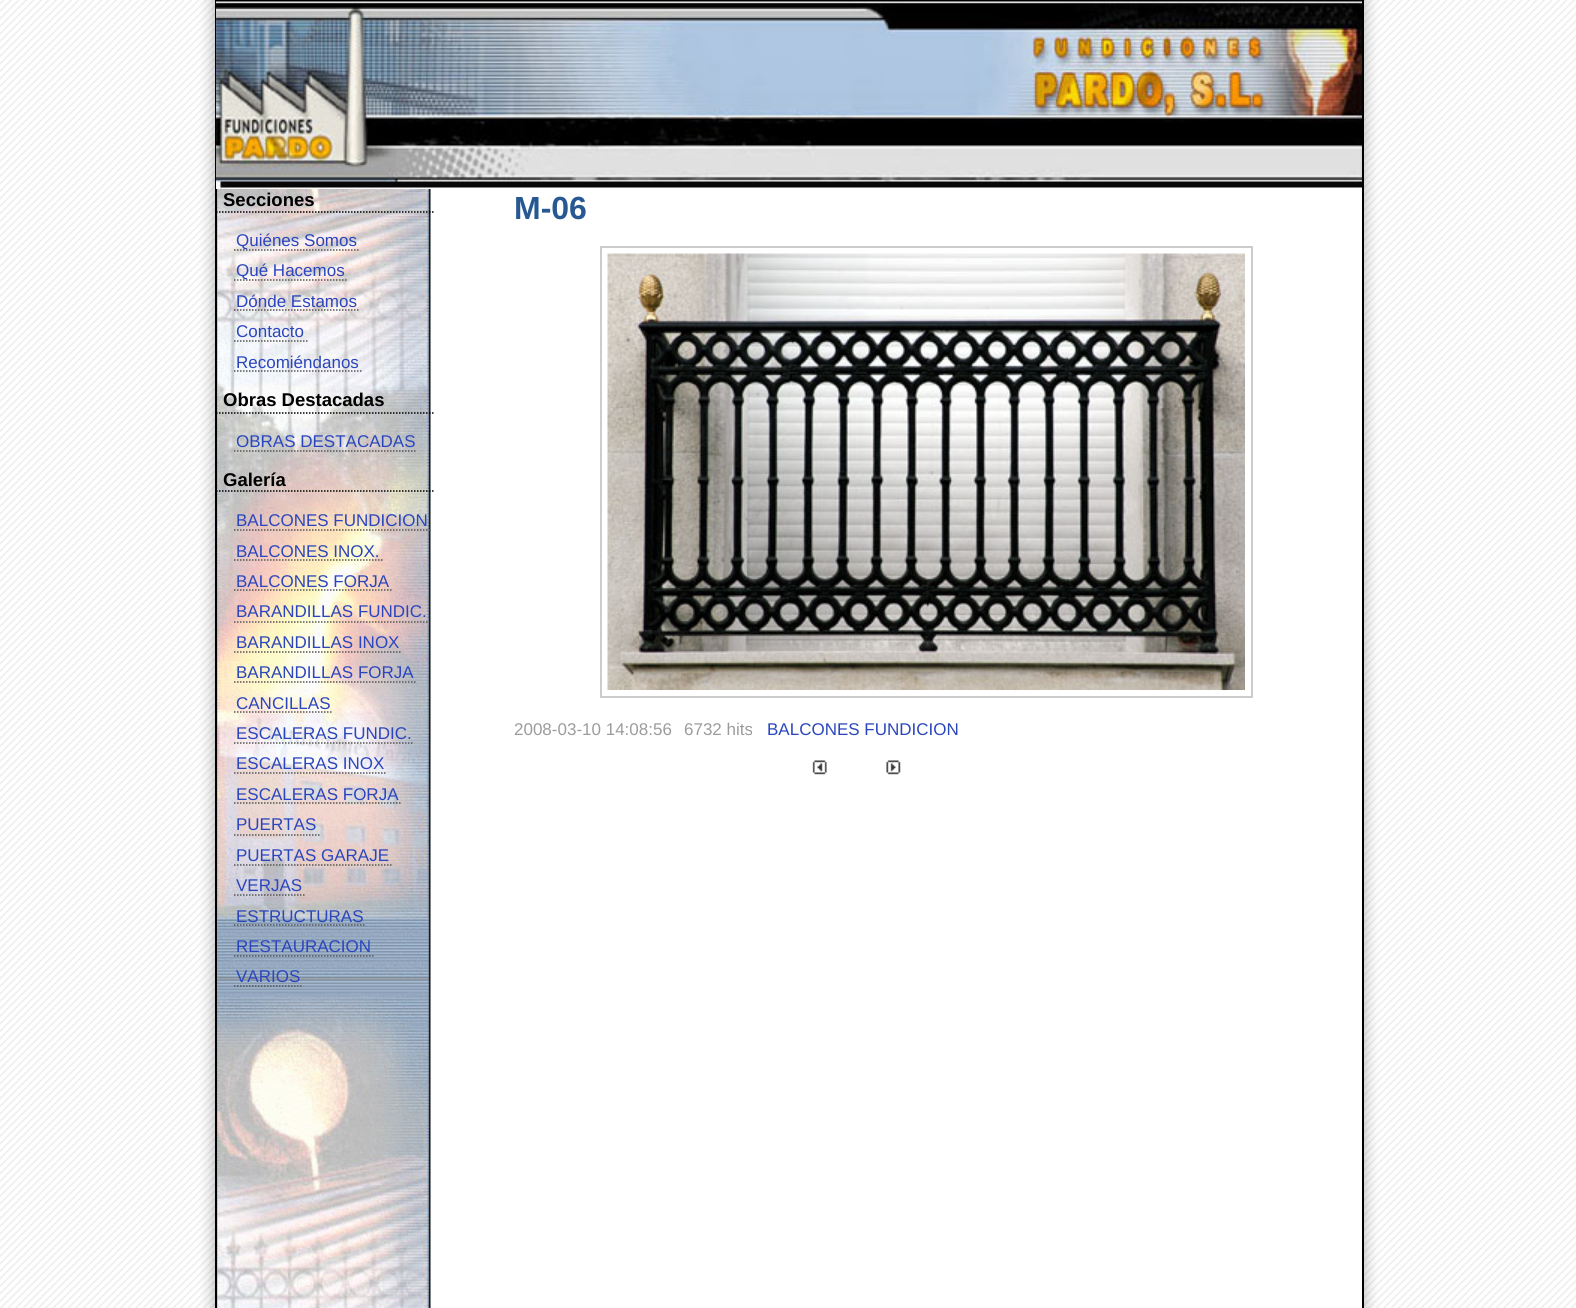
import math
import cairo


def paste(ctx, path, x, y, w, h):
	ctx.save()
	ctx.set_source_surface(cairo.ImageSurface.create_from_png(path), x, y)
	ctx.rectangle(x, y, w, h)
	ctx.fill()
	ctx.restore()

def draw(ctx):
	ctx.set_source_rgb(1, 1, 1)
	ctx.paint()
	paste(ctx, 'media/1.png', 0, 0, 1576, 1308)
	ctx.set_source_rgb(1, 1, 1)
	ctx.rectangle(1353, 189, 9, 1119)
	ctx.fill()
	paste(ctx, 'media/2.png', 217, 189, 214, 1119)
	ctx.rectangle(216, 1, 1147, 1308)
	ctx.set_source_rgb(0, 0, 0)
	ctx.stroke()
	paste(ctx, 'media/3.png', 216, 1, 1146, 188)
	ctx.new_path()
	ctx.move_to(216, 212)
	ctx.line_to(433.5, 212)
	ctx.set_line_width(1.5)
	ctx.set_dash([1.5, 1.5])
	ctx.stroke()
	ctx.select_font_face('Liberation Sans', cairo.FONT_SLANT_NORMAL, cairo.FONT_WEIGHT_BOLD)
	ctx.set_font_size(18.5)
	ctx.move_to(223, 206)
	ctx.show_text('Secciones')
	ctx.new_path()
	ctx.move_to(234, 250)
	ctx.line_to(360, 250)
	ctx.set_source_rgb(0.333, 0.333, 0.333)
	ctx.stroke()
	ctx.select_font_face('Liberation Sans')
	ctx.set_font_size(17)
	ctx.set_source_rgb(0.169, 0.275, 0.741)
	ctx.move_to(236, 246)
	ctx.show_text('Quiénes Somos')
	ctx.new_path()
	ctx.move_to(234, 280)
	ctx.line_to(348, 280)
	ctx.set_source_rgb(0.333, 0.333, 0.333)
	ctx.stroke()
	ctx.set_source_rgb(0.169, 0.275, 0.741)
	ctx.move_to(236, 276)
	ctx.show_text('Qué Hacemos')
	ctx.move_to(236, 307)
	ctx.show_text('Dónde Estamos')
	ctx.new_path()
	ctx.move_to(234, 310)
	ctx.line_to(360, 310)
	ctx.set_source_rgb(0.333, 0.333, 0.333)
	ctx.stroke()
	ctx.set_source_rgb(0.169, 0.275, 0.741)
	ctx.move_to(236, 337)
	ctx.show_text('Contacto')
	ctx.new_path()
	ctx.move_to(234, 341)
	ctx.line_to(307.5, 341)
	ctx.set_source_rgb(0.333, 0.333, 0.333)
	ctx.stroke()
	ctx.set_source_rgb(0.169, 0.275, 0.741)
	ctx.move_to(236, 368)
	ctx.show_text('Recomiéndanos')
	ctx.new_path()
	ctx.move_to(234, 371)
	ctx.line_to(361.5, 371)
	ctx.set_source_rgb(0.333, 0.333, 0.333)
	ctx.stroke()
	ctx.new_path()
	ctx.move_to(216, 413)
	ctx.line_to(433.5, 413)
	ctx.set_source_rgb(0, 0, 0)
	ctx.stroke()
	ctx.select_font_face('Liberation Sans', cairo.FONT_SLANT_NORMAL, cairo.FONT_WEIGHT_BOLD)
	ctx.set_font_size(18.5)
	ctx.move_to(223, 406)
	ctx.show_text('Obras Destacadas')
	ctx.select_font_face('Liberation Sans')
	ctx.set_font_size(17)
	ctx.set_source_rgb(0.169, 0.275, 0.741)
	ctx.move_to(236, 447)
	ctx.show_text('OBRAS DESTACADAS')
	ctx.new_path()
	ctx.move_to(234, 451)
	ctx.line_to(417, 451)
	ctx.set_source_rgb(0.333, 0.333, 0.333)
	ctx.stroke()
	ctx.new_path()
	ctx.move_to(216, 491)
	ctx.line_to(433.5, 491)
	ctx.set_source_rgb(0, 0, 0)
	ctx.stroke()
	ctx.select_font_face('Liberation Sans', cairo.FONT_SLANT_NORMAL, cairo.FONT_WEIGHT_BOLD)
	ctx.set_font_size(18.5)
	ctx.move_to(223, 486)
	ctx.show_text('Galería')
	ctx.select_font_face('Liberation Sans')
	ctx.set_font_size(17)
	ctx.set_source_rgb(0.169, 0.275, 0.741)
	ctx.move_to(236, 526)
	ctx.show_text('BALCONES FUNDICION')
	ctx.new_path()
	ctx.move_to(234, 530)
	ctx.line_to(430.5, 530)
	ctx.set_source_rgb(0.333, 0.333, 0.333)
	ctx.stroke()
	ctx.set_source_rgb(0.169, 0.275, 0.741)
	ctx.move_to(236, 557)
	ctx.show_text('BALCONES INOX.')
	ctx.new_path()
	ctx.move_to(234, 560)
	ctx.line_to(382.5, 560)
	ctx.set_source_rgb(0.333, 0.333, 0.333)
	ctx.stroke()
	ctx.set_source_rgb(0.169, 0.275, 0.741)
	ctx.move_to(236, 587)
	ctx.show_text('BALCONES FORJA')
	ctx.new_path()
	ctx.move_to(234, 590)
	ctx.line_to(391.5, 590)
	ctx.set_source_rgb(0.333, 0.333, 0.333)
	ctx.stroke()
	ctx.set_source_rgb(0.169, 0.275, 0.741)
	ctx.move_to(236, 617)
	ctx.show_text('BARANDILLAS FUNDIC.')
	ctx.new_path()
	ctx.move_to(234, 622)
	ctx.line_to(429, 622)
	ctx.set_source_rgb(0.333, 0.333, 0.333)
	ctx.stroke()
	ctx.set_source_rgb(0.169, 0.275, 0.741)
	ctx.move_to(236, 648)
	ctx.show_text('BARANDILLAS INOX')
	ctx.new_path()
	ctx.move_to(234, 652)
	ctx.line_to(402, 652)
	ctx.set_source_rgb(0.333, 0.333, 0.333)
	ctx.stroke()
	ctx.set_source_rgb(0.169, 0.275, 0.741)
	ctx.move_to(236, 678)
	ctx.show_text('BARANDILLAS FORJA')
	ctx.new_path()
	ctx.move_to(234, 682)
	ctx.line_to(415.5, 682)
	ctx.set_source_rgb(0.333, 0.333, 0.333)
	ctx.stroke()
	ctx.set_source_rgb(0.169, 0.275, 0.741)
	ctx.move_to(236, 709)
	ctx.show_text('CANCILLAS')
	ctx.new_path()
	ctx.move_to(234, 712)
	ctx.line_to(333, 712)
	ctx.set_source_rgb(0.333, 0.333, 0.333)
	ctx.stroke()
	ctx.set_source_rgb(0.169, 0.275, 0.741)
	ctx.move_to(236, 739)
	ctx.show_text('ESCALERAS FUNDIC.')
	ctx.new_path()
	ctx.move_to(234, 743)
	ctx.line_to(414, 743)
	ctx.set_source_rgb(0.333, 0.333, 0.333)
	ctx.stroke()
	ctx.set_source_rgb(0.169, 0.275, 0.741)
	ctx.move_to(236, 769)
	ctx.show_text('ESCALERAS INOX')
	ctx.new_path()
	ctx.move_to(234, 773)
	ctx.line_to(387, 773)
	ctx.set_source_rgb(0.333, 0.333, 0.333)
	ctx.stroke()
	ctx.set_source_rgb(0.169, 0.275, 0.741)
	ctx.move_to(236, 800)
	ctx.show_text('ESCALERAS FORJA')
	ctx.new_path()
	ctx.move_to(234, 803)
	ctx.line_to(400.5, 803)
	ctx.set_source_rgb(0.333, 0.333, 0.333)
	ctx.stroke()
	ctx.set_source_rgb(0.169, 0.275, 0.741)
	ctx.move_to(236, 830)
	ctx.show_text('PUERTAS')
	ctx.new_path()
	ctx.move_to(234, 835)
	ctx.line_to(319.5, 835)
	ctx.set_source_rgb(0.333, 0.333, 0.333)
	ctx.stroke()
	ctx.set_source_rgb(0.169, 0.275, 0.741)
	ctx.move_to(236, 861)
	ctx.show_text('PUERTAS GARAJE')
	ctx.new_path()
	ctx.move_to(234, 865)
	ctx.line_to(391.5, 865)
	ctx.set_source_rgb(0.333, 0.333, 0.333)
	ctx.stroke()
	ctx.set_source_rgb(0.169, 0.275, 0.741)
	ctx.move_to(236, 891)
	ctx.show_text('VERJAS')
	ctx.new_path()
	ctx.move_to(234, 895)
	ctx.line_to(304.5, 895)
	ctx.set_source_rgb(0.333, 0.333, 0.333)
	ctx.stroke()
	ctx.set_source_rgb(0.169, 0.275, 0.741)
	ctx.move_to(236, 922)
	ctx.show_text('ESTRUCTURAS')
	ctx.new_path()
	ctx.move_to(234, 925)
	ctx.line_to(366, 925)
	ctx.set_source_rgb(0.333, 0.333, 0.333)
	ctx.stroke()
	ctx.set_source_rgb(0.169, 0.275, 0.741)
	ctx.move_to(236, 952)
	ctx.show_text('RESTAURACION')
	ctx.new_path()
	ctx.move_to(234, 956)
	ctx.line_to(373.5, 956)
	ctx.set_source_rgb(0.333, 0.333, 0.333)
	ctx.stroke()
	ctx.set_source_rgb(0.169, 0.275, 0.741)
	ctx.move_to(236, 982)
	ctx.show_text('VARIOS')
	ctx.new_path()
	ctx.move_to(234, 986)
	ctx.line_to(303, 986)
	ctx.set_source_rgb(0.333, 0.333, 0.333)
	ctx.stroke()
	ctx.select_font_face('Liberation Sans', cairo.FONT_SLANT_NORMAL, cairo.FONT_WEIGHT_BOLD)
	ctx.set_font_size(32)
	ctx.set_source_rgb(0.157, 0.345, 0.573)
	ctx.move_to(514, 219)
	ctx.show_text('M-06')
	ctx.rectangle(601, 247, 651, 450)
	ctx.set_source_rgb(0.8, 0.8, 0.8)
	ctx.set_line_width(2)
	ctx.set_dash([])
	ctx.stroke()
	paste(ctx, 'media/4.png', 607, 253, 638, 437)
	ctx.select_font_face('Liberation Sans')
	ctx.set_font_size(17)
	ctx.set_source_rgb(0.616, 0.612, 0.608)
	ctx.move_to(514, 735)
	ctx.show_text('2008-03-10 14:08:56')
	ctx.move_to(684, 735)
	ctx.show_text('6732 hits')
	ctx.set_source_rgb(0.169, 0.275, 0.741)
	ctx.move_to(767, 735)
	ctx.show_text('BALCONES FUNDICION')
	paste(ctx, 'media/5.png', 812, 760, 15, 15)
	paste(ctx, 'media/6.png', 886, 760, 15, 15)


surface = cairo.ImageSurface(cairo.FORMAT_RGB24, 1576, 1308)
ctx = cairo.Context(surface)
options = cairo.FontOptions()
options.set_hint_metrics(cairo.HINT_METRICS_OFF)
options.set_hint_style(cairo.HINT_STYLE_NONE)
ctx.set_font_options(options)
ctx.set_miter_limit(4)
draw(ctx)
surface.write_to_png('image.png')
